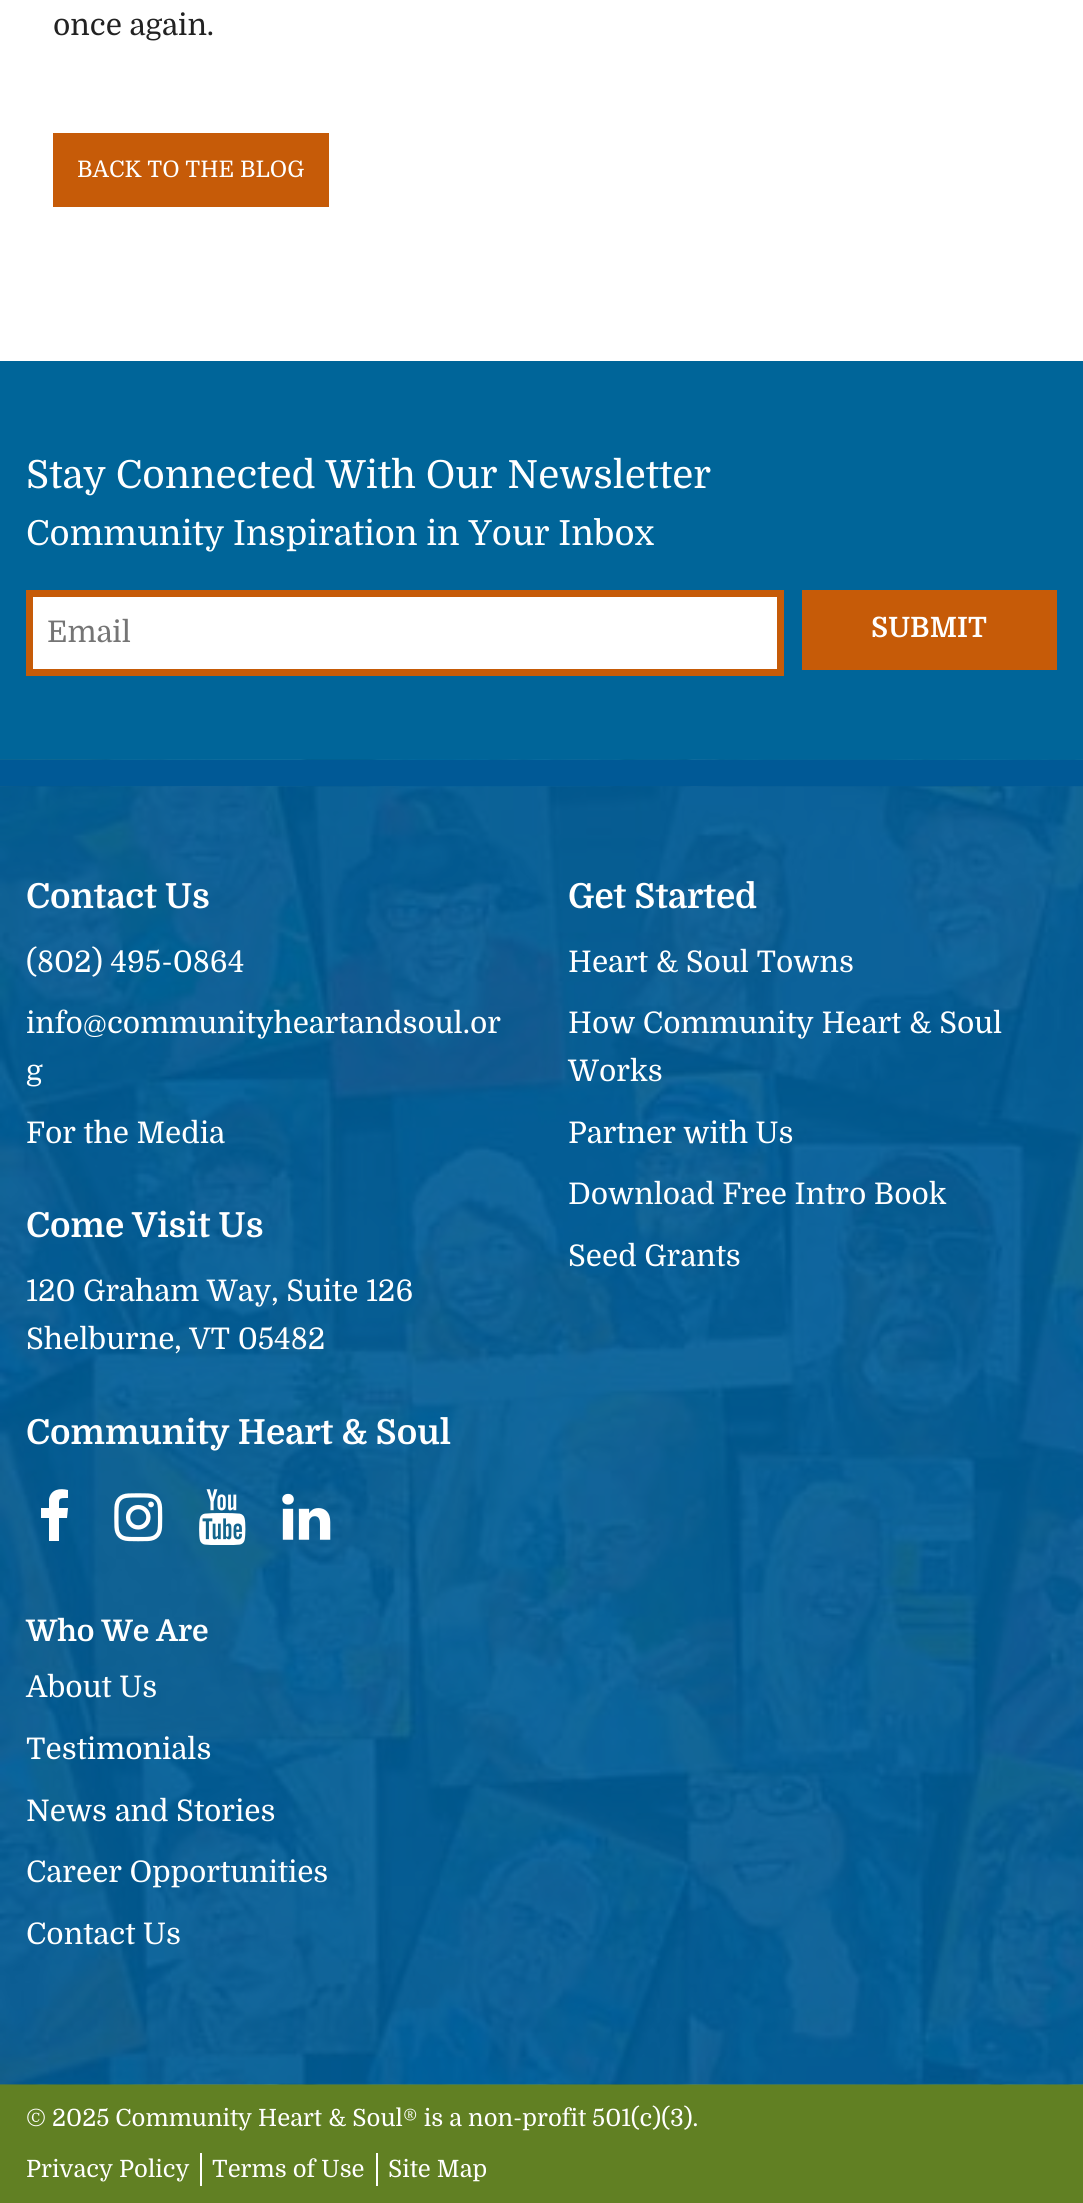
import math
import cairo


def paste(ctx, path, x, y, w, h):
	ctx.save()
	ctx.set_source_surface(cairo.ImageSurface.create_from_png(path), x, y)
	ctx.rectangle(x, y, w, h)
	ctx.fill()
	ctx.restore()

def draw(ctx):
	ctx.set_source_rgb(1, 1, 1)
	ctx.paint()
	ctx.select_font_face('Domine')
	ctx.set_font_size(29.75)
	ctx.set_source_rgb(0.133, 0.133, 0.133)
	ctx.move_to(53, 35)
	ctx.show_text('once again.')
	ctx.set_source_rgb(0.776, 0.357, 0.035)
	ctx.rectangle(53, 133, 276, 74)
	ctx.fill()
	ctx.set_font_size(22.75)
	ctx.set_source_rgb(1, 1, 1)
	ctx.move_to(77, 177)
	ctx.show_text('BACK TO THE BLOG')
	ctx.set_source_rgb(0, 0.396, 0.6)
	ctx.rectangle(0, 361, 1083, 399)
	ctx.fill()
	ctx.set_font_size(38.7)
	ctx.set_source_rgb(1, 1, 1)
	ctx.move_to(26, 488)
	ctx.show_text('Stay Connected With Our Newsletter')
	ctx.set_font_size(34.5)
	ctx.move_to(26, 545)
	ctx.show_text('Community Inspiration in Your Inbox')
	ctx.rectangle(29.5, 593.5, 751, 79)
	ctx.fill_preserve()
	ctx.set_source_rgb(0.776, 0.357, 0.035)
	ctx.set_line_width(7)
	ctx.stroke()
	ctx.set_font_size(29.75)
	ctx.set_source_rgb(0.459, 0.459, 0.459)
	ctx.move_to(47, 642)
	ctx.show_text('Email')
	ctx.set_source_rgb(0.776, 0.357, 0.035)
	ctx.rectangle(802, 590, 255, 80)
	ctx.fill()
	ctx.select_font_face('Domine', cairo.FONT_SLANT_NORMAL, cairo.FONT_WEIGHT_BOLD)
	ctx.set_font_size(28)
	ctx.set_source_rgb(1, 1, 1)
	ctx.move_to(871, 637)
	ctx.show_text('SUBMIT')
	ctx.set_source_rgb(0.38, 0.502, 0.137)
	ctx.rectangle(0, 2084, 1083, 119)
	ctx.fill()
	paste(ctx, 'media/1.png', 0, 759, 1083, 1326)
	ctx.set_source_rgb(0, 0.349, 0.588)
	ctx.rectangle(0, 760, 1083, 26)
	ctx.fill()
	ctx.set_font_size(34.5)
	ctx.set_source_rgb(1, 1, 1)
	ctx.move_to(26, 908)
	ctx.show_text('Contact Us')
	ctx.select_font_face('Domine')
	ctx.set_font_size(29.75)
	for x, y, s in [
		(26, 972, '(802) 495-0864'),
		(26, 1033, 'info@communityheartandsoul.or'),
		(26, 1081, 'g'),
		(26, 1143, 'For the Media'),
	]:
		ctx.move_to(x, y)
		ctx.show_text(s)
	ctx.select_font_face('Domine', cairo.FONT_SLANT_NORMAL, cairo.FONT_WEIGHT_BOLD)
	ctx.set_font_size(34.5)
	ctx.move_to(26, 1237)
	ctx.show_text('Come Visit Us')
	ctx.select_font_face('Domine')
	ctx.set_font_size(29.75)
	ctx.move_to(26, 1301)
	ctx.show_text('120 Graham Way, Suite 126')
	ctx.move_to(26, 1349)
	ctx.show_text('Shelburne, VT 05482')
	ctx.select_font_face('Domine', cairo.FONT_SLANT_NORMAL, cairo.FONT_WEIGHT_BOLD)
	ctx.set_font_size(34.5)
	ctx.move_to(26, 1444)
	ctx.show_text('Community Heart & Soul')
	ctx.new_path()
	ctx.move_to(68, 1490)
	ctx.line_to(68, 1498)
	ctx.curve_to(58, 1498, 59, 1498, 59, 1508)
	ctx.line_to(68, 1508)
	ctx.line_to(67, 1518)
	ctx.line_to(59, 1518)
	ctx.line_to(59, 1541)
	ctx.line_to(49, 1541)
	ctx.line_to(49, 1518)
	ctx.line_to(41, 1518)
	ctx.line_to(41, 1508)
	ctx.line_to(49, 1508)
	ctx.line_to(49, 1499)
	ctx.curve_to(51, 1489, 60, 1488, 68, 1490)
	ctx.close_path()
	ctx.fill()
	paste(ctx, 'media/2.png', 114, 1493, 49, 49)
	paste(ctx, 'media/3.png', 199, 1489, 47, 56)
	paste(ctx, 'media/4.png', 282, 1493, 49, 47)
	ctx.move_to(568, 908)
	ctx.show_text('Get Started')
	ctx.select_font_face('Domine')
	ctx.set_font_size(29.75)
	for x, y, s in [
		(568, 972, 'Heart & Soul Towns'),
		(568, 1033, 'How Community Heart & Soul'),
		(568, 1081, 'Works'),
		(568, 1143, 'Partner with Us'),
		(568, 1204, 'Download Free Intro Book'),
		(568, 1266, 'Seed Grants'),
	]:
		ctx.move_to(x, y)
		ctx.show_text(s)
	ctx.select_font_face('Domine', cairo.FONT_SLANT_NORMAL, cairo.FONT_WEIGHT_BOLD)
	ctx.move_to(26, 1641)
	ctx.show_text('Who We Are')
	ctx.select_font_face('Domine')
	for x, y, s in [
		(26, 1697, 'About Us'),
		(26, 1759, 'Testimonials'),
		(26, 1821, 'News and Stories'),
		(26, 1882, 'Career Opportunities'),
		(26, 1944, 'Contact Us'),
	]:
		ctx.move_to(x, y)
		ctx.show_text(s)
	ctx.set_font_size(23.8)
	ctx.move_to(26, 2126)
	ctx.show_text('© 2025 Community Heart & Soul® is a non-profit 501(c)(3).')
	ctx.move_to(26, 2177)
	ctx.show_text('Privacy Policy')
	ctx.rectangle(200, 2153, 2, 33)
	ctx.fill()
	ctx.move_to(212, 2177)
	ctx.show_text('Terms of Use')
	ctx.rectangle(376, 2153, 2, 33)
	ctx.fill()
	ctx.move_to(388, 2177)
	ctx.show_text('Site Map')


surface = cairo.ImageSurface(cairo.FORMAT_RGB24, 1083, 2203)
ctx = cairo.Context(surface)
options = cairo.FontOptions()
options.set_hint_metrics(cairo.HINT_METRICS_OFF)
options.set_hint_style(cairo.HINT_STYLE_NONE)
ctx.set_font_options(options)
ctx.set_miter_limit(4)
draw(ctx)
surface.write_to_png('image.png')
